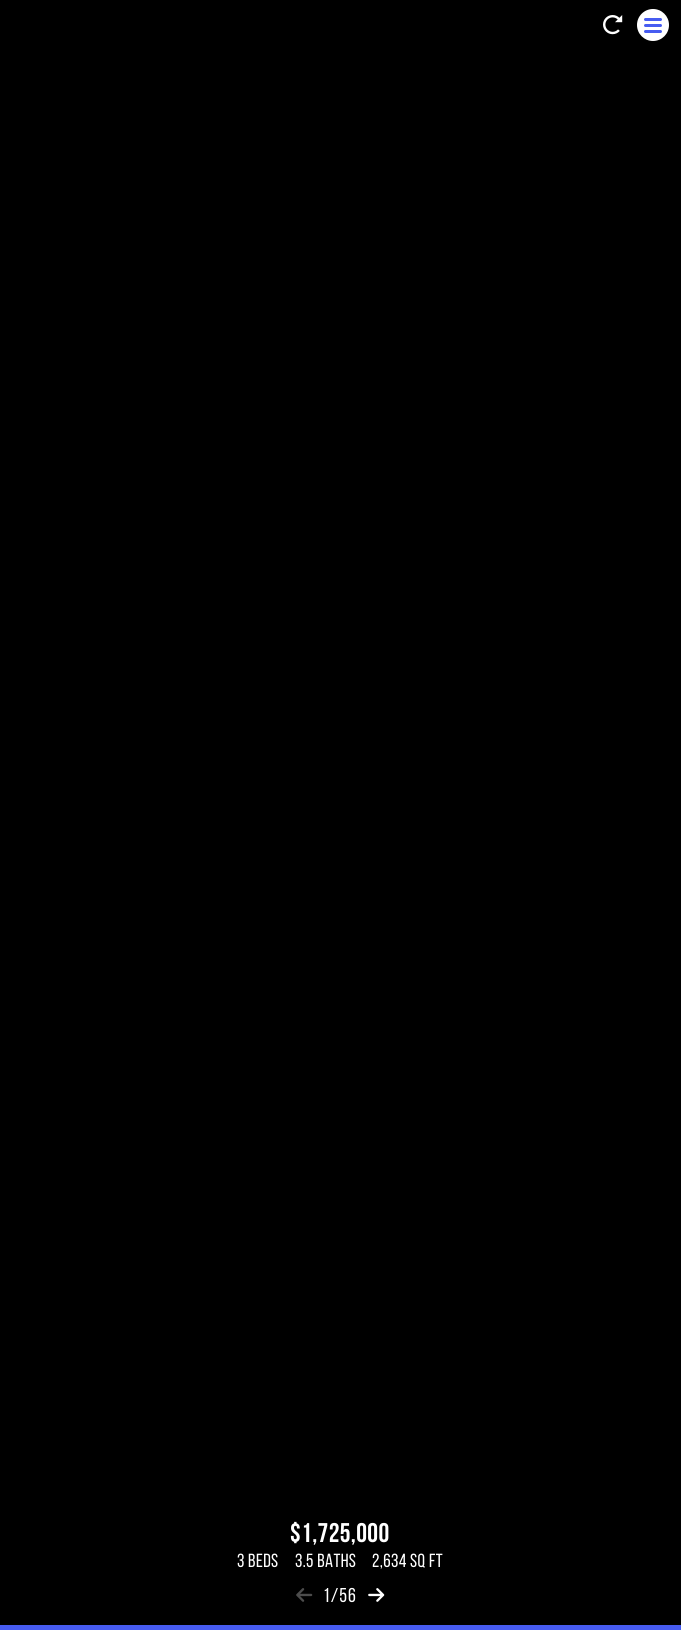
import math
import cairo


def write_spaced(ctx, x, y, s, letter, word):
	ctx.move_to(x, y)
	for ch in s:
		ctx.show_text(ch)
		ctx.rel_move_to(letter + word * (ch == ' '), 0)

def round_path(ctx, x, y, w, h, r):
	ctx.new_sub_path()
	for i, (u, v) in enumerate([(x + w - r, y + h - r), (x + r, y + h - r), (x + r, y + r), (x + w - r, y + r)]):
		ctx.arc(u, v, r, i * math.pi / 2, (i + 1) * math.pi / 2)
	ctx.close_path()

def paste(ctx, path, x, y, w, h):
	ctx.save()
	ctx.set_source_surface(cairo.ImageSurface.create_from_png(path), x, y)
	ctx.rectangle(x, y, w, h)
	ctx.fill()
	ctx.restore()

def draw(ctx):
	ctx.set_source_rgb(0, 0, 0)
	ctx.paint()
	paste(ctx, 'media/1.png', 603, 15, 20, 20)
	ctx.set_source_rgb(1, 1, 1)
	ctx.arc(653, 25, 16, 0, 2 * math.pi)
	ctx.fill()
	ctx.set_source_rgb(0.278, 0.361, 0.945)
	round_path(ctx, 644, 24, 18, 3, 1.5)
	ctx.fill()
	round_path(ctx, 644, 18, 18, 3, 1.5)
	ctx.fill()
	round_path(ctx, 644, 30, 18, 3, 1.5)
	ctx.fill()
	ctx.rectangle(0, 1625, 681, 5)
	ctx.fill()
	ctx.select_font_face('Bebas Neue', cairo.FONT_SLANT_NORMAL, cairo.FONT_WEIGHT_BOLD)
	ctx.set_font_size(27)
	ctx.set_source_rgb(1, 1, 1)
	write_spaced(ctx, 290, 1542, '$1,725,000', 0.4, 0)
	ctx.select_font_face('Bebas Neue')
	ctx.set_font_size(19)
	for x, y, s in [
		(237, 1567, '3 BEDS'),
		(295, 1567, '3.5 BATHS'),
		(372, 1567, '2,634 SQ FT'),
	]:
		write_spaced(ctx, x, y, s, 0.4, 0)
	paste(ctx, 'media/2.png', 296, 1588, 17, 14)
	ctx.set_font_size(20)
	write_spaced(ctx, 323, 1602, '1/56', 1, 0)
	paste(ctx, 'media/3.png', 368, 1588, 17, 14)


surface = cairo.ImageSurface(cairo.FORMAT_RGB24, 681, 1630)
ctx = cairo.Context(surface)
options = cairo.FontOptions()
options.set_hint_metrics(cairo.HINT_METRICS_OFF)
options.set_hint_style(cairo.HINT_STYLE_NONE)
ctx.set_font_options(options)
ctx.set_miter_limit(4)
draw(ctx)
surface.write_to_png('image.png')
